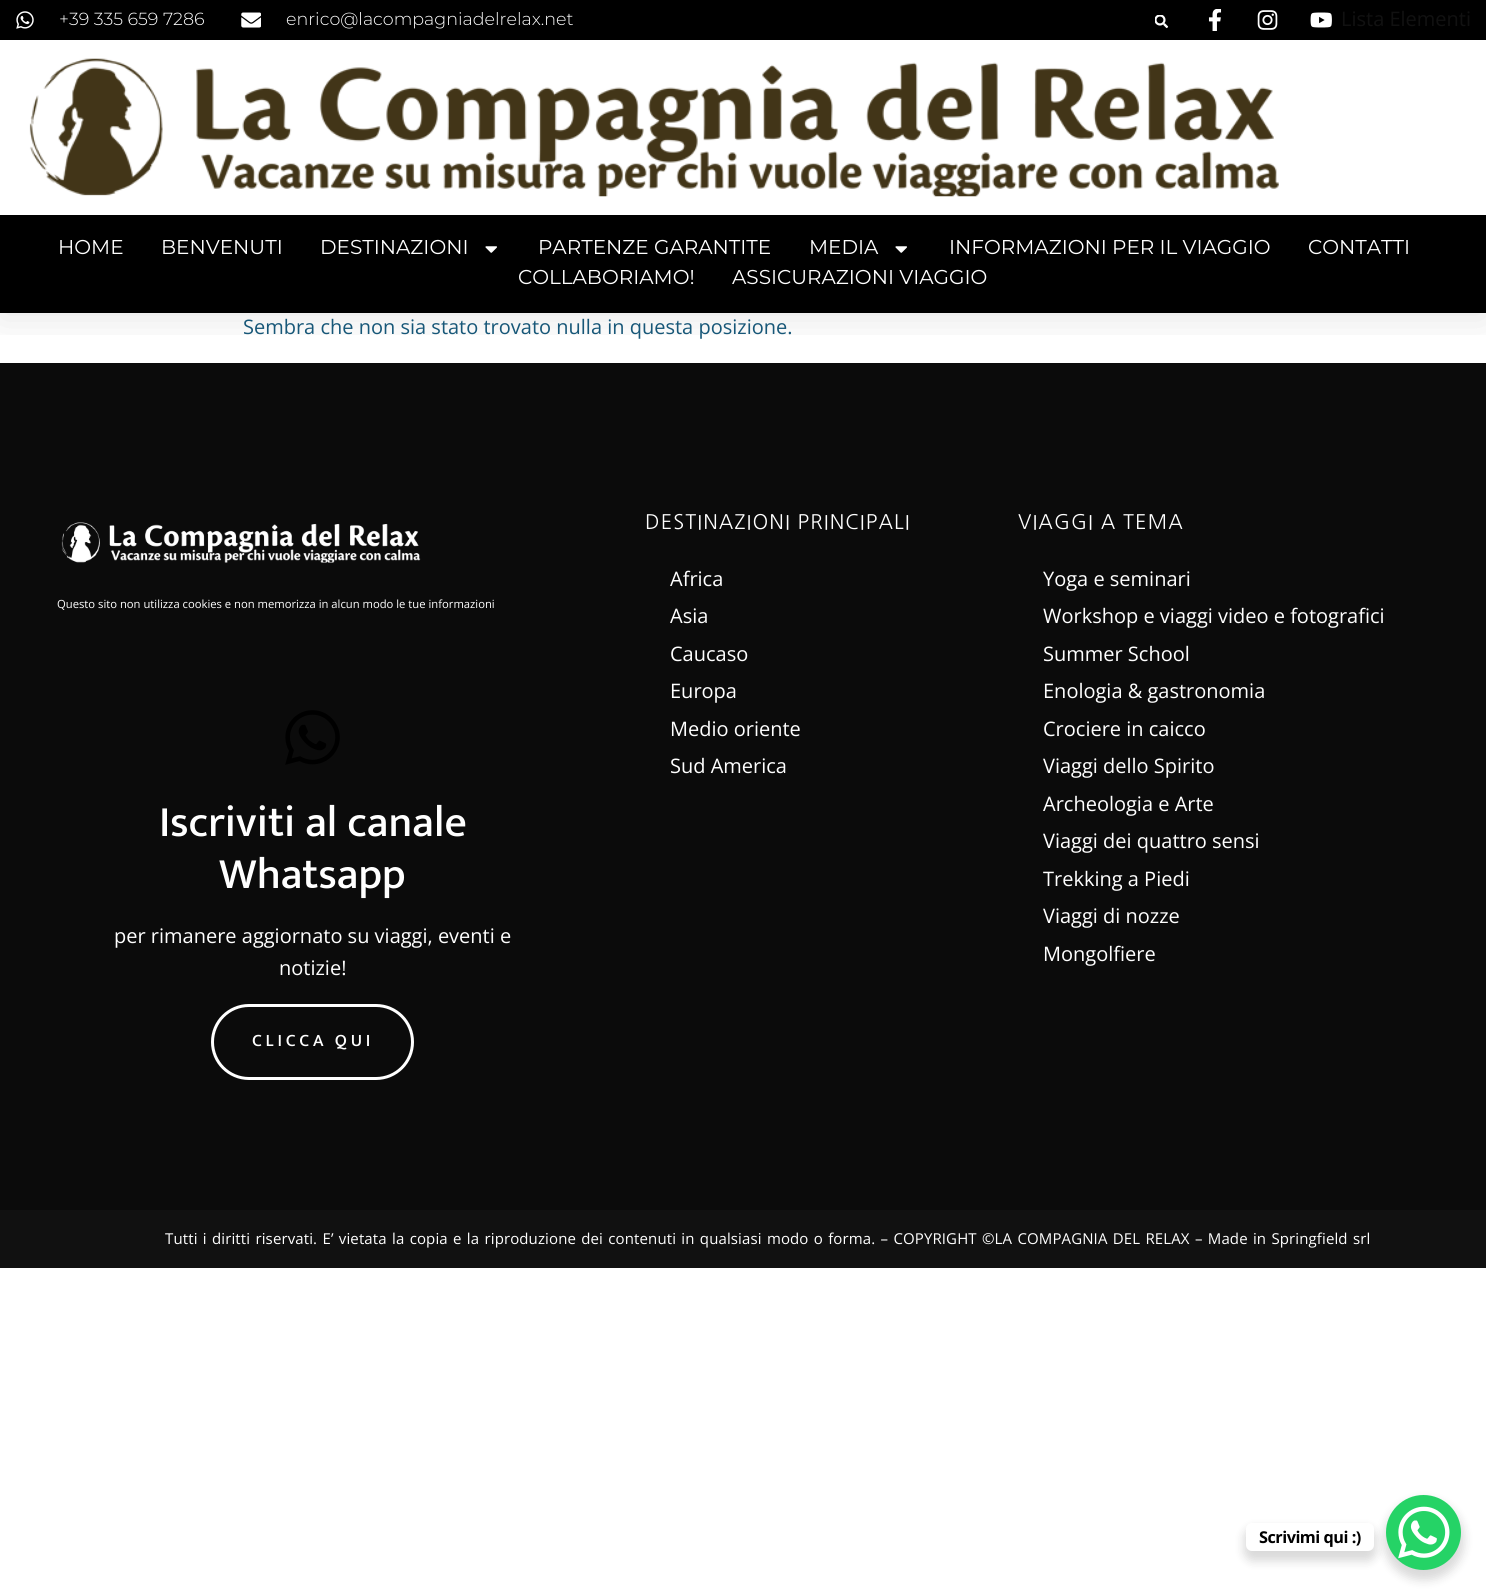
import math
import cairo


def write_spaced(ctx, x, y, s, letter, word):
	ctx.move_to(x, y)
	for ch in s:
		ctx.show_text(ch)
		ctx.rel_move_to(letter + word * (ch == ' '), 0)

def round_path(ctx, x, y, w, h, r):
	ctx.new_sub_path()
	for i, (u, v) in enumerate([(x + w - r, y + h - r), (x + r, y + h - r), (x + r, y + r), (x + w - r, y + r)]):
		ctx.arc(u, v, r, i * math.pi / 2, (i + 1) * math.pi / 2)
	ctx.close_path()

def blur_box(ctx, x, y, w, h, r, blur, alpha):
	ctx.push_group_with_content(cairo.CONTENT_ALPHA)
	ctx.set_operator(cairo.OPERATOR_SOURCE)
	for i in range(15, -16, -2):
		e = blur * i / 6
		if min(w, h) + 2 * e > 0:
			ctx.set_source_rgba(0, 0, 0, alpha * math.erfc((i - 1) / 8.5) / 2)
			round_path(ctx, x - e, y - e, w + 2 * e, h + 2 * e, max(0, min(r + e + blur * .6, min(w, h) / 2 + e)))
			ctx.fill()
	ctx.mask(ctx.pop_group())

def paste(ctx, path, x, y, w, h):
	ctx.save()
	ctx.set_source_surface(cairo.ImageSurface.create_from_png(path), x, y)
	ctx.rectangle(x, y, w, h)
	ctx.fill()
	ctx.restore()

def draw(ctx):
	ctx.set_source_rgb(1, 1, 1)
	ctx.paint()
	ctx.set_source_rgb(0.043, 0.043, 0.043)
	ctx.rectangle(0, 363, 1486, 847)
	ctx.fill()
	ctx.save()
	ctx.rectangle(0, 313, 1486, 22)
	ctx.clip()
	ctx.set_source_rgb(0, 0, 0)
	blur_box(ctx, 0, 6, 1486, 313, 0, 19, 0.1)
	ctx.restore()
	ctx.set_source_rgb(0, 0, 0)
	ctx.rectangle(0, 0, 1486, 40)
	ctx.fill()
	paste(ctx, 'media/1.png', 16, 11, 18, 18)
	ctx.select_font_face('Montserrat Light')
	ctx.set_font_size(17.5)
	ctx.set_source_rgb(1, 1, 1)
	ctx.move_to(59, 25)
	ctx.show_text('+39 335 659 7286')
	paste(ctx, 'media/2.png', 241, 12, 20, 16)
	ctx.move_to(286, 25)
	ctx.show_text('enrico@lacompagniadelrelax.net')
	paste(ctx, 'media/3.png', 1155, 15, 14, 14)
	paste(ctx, 'media/4.png', 1208, 9, 14, 22)
	paste(ctx, 'media/5.png', 1257, 10, 21, 20)
	paste(ctx, 'media/6.png', 1310, 12, 22, 16)
	ctx.select_font_face('Open Sans')
	ctx.set_font_size(20)
	ctx.set_source_rgb(0.067, 0.067, 0.067)
	ctx.move_to(1341, 26)
	ctx.show_text('Lista Elementi')
	paste(ctx, 'media/7.png', 29, 58, 1250, 139)
	ctx.set_source_rgb(0, 0, 0)
	ctx.rectangle(0, 215, 1486, 98)
	ctx.fill()
	ctx.select_font_face('Montserrat')
	ctx.set_source_rgb(1, 1, 1)
	for x, y, s in [
		(58, 254, 'HOME'),
		(161, 254, 'BENVENUTI'),
		(320, 254, 'DESTINAZIONI'),
	]:
		ctx.move_to(x, y)
		ctx.show_text(s)
	paste(ctx, 'media/8.png', 485, 246, 12, 7)
	ctx.move_to(538, 254)
	ctx.show_text('PARTENZE GARANTITE')
	ctx.move_to(809, 254)
	ctx.show_text('MEDIA')
	paste(ctx, 'media/8.png', 895, 246, 12, 7)
	for x, y, s in [
		(949, 254, 'INFORMAZIONI PER IL VIAGGIO'),
		(1308, 254, 'CONTATTI'),
		(518, 284, 'COLLABORIAMO!'),
		(732, 284, 'ASSICURAZIONI VIAGGIO'),
	]:
		ctx.move_to(x, y)
		ctx.show_text(s)
	ctx.select_font_face('Open Sans')
	ctx.set_source_rgb(0.09, 0.341, 0.471)
	ctx.move_to(243, 334)
	ctx.show_text('Sembra che non sia stato trovato nulla in questa posizione.')
	paste(ctx, 'media/9.png', 61, 522, 360, 41)
	ctx.set_font_size(11.25)
	ctx.set_source_rgb(1, 1, 1)
	ctx.move_to(57, 608)
	ctx.show_text('Questo sito non utilizza cookies e non memorizza in alcun modo le tue informazioni')
	paste(ctx, 'media/10.png', 285, 710, 55, 55)
	ctx.select_font_face('Mukta Medium')
	ctx.set_font_size(43.75)
	ctx.move_to(159, 836)
	ctx.show_text('Iscriviti al canale')
	ctx.move_to(219, 888)
	ctx.show_text('Whatsapp')
	ctx.select_font_face('Open Sans')
	ctx.set_font_size(20)
	ctx.move_to(114, 943)
	ctx.show_text('per rimanere aggiornato su viaggi, eventi e')
	ctx.move_to(279, 975)
	ctx.show_text('notizie!')
	round_path(ctx, 212.5, 1005.5, 200, 73, 36.5)
	ctx.set_line_width(3)
	ctx.stroke()
	ctx.select_font_face('Mukta Medium')
	ctx.set_font_size(17.5)
	write_spaced(ctx, 252, 1046, 'CLICCA QUI', 3.75, 0)
	ctx.select_font_face('NanumGothic')
	ctx.set_font_size(20)
	write_spaced(ctx, 645, 529, 'DESTINAZIONI PRINCIPALI', 1.1, 0)
	ctx.select_font_face('Open Sans')
	for x, y, s in [
		(670, 586, 'Africa'),
		(670, 623, 'Asia'),
		(670, 661, 'Caucaso'),
		(670, 698, 'Europa'),
		(670, 736, 'Medio oriente'),
		(670, 773, 'Sud America'),
	]:
		ctx.move_to(x, y)
		ctx.show_text(s)
	ctx.select_font_face('NanumGothic')
	write_spaced(ctx, 1018, 529, 'VIAGGI A TEMA', 1.1, 0)
	ctx.select_font_face('Open Sans')
	for x, y, s in [
		(1043, 586, 'Yoga e seminari'),
		(1043, 623, 'Workshop e viaggi video e fotografici'),
		(1043, 661, 'Summer School'),
		(1043, 698, 'Enologia & gastronomia'),
		(1043, 736, 'Crociere in caicco'),
		(1043, 773, 'Viaggi dello Spirito'),
		(1043, 811, 'Archeologia e Arte'),
		(1043, 848, 'Viaggi dei quattro sensi'),
		(1043, 886, 'Trekking a Piedi'),
		(1043, 923, 'Viaggi di nozze'),
		(1043, 961, 'Mongolfiere'),
	]:
		ctx.move_to(x, y)
		ctx.show_text(s)
	ctx.set_source_rgb(0.067, 0.067, 0.067)
	ctx.rectangle(0, 1210, 1486, 58)
	ctx.fill()
	ctx.set_font_size(15)
	ctx.set_source_rgb(1, 1, 1)
	write_spaced(ctx, 165, 1244, 'Tutti i diritti riservati. E’ vietata la copia e la riproduzione dei contenuti in qualsiasi modo o forma. – COPYRIGHT ©LA COMPAGNIA DEL RELAX – Made in Springfield srl', 0.12, 1.25)
	ctx.set_source_rgb(0, 0, 0)
	blur_box(ctx, 1384, 1500, 80, 80, 40, 5, 0.15)
	ctx.set_source_rgb(0.145, 0.827, 0.4)
	ctx.arc(1423.5, 1532.5, 37.5, 0, 2 * math.pi)
	ctx.fill()
	ctx.set_source_rgb(0, 0, 0)
	blur_box(ctx, 1244, 1528, 132, 33, 9, 5, 0.15)
	ctx.set_source_rgb(1, 1, 1)
	round_path(ctx, 1246, 1523, 128, 28, 6)
	ctx.fill()
	ctx.select_font_face('Open Sans', cairo.FONT_SLANT_NORMAL, cairo.FONT_WEIGHT_BOLD)
	ctx.set_font_size(16.25)
	ctx.set_source_rgb(0, 0, 0)
	write_spaced(ctx, 1259, 1543, 'Scrivimi qui :)', -0.5, 0)
	paste(ctx, 'media/11.png', 1398, 1506, 52, 53)


surface = cairo.ImageSurface(cairo.FORMAT_RGB24, 1486, 1595)
ctx = cairo.Context(surface)
options = cairo.FontOptions()
options.set_hint_metrics(cairo.HINT_METRICS_OFF)
options.set_hint_style(cairo.HINT_STYLE_NONE)
ctx.set_font_options(options)
ctx.set_miter_limit(4)
draw(ctx)
surface.write_to_png('image.png')
